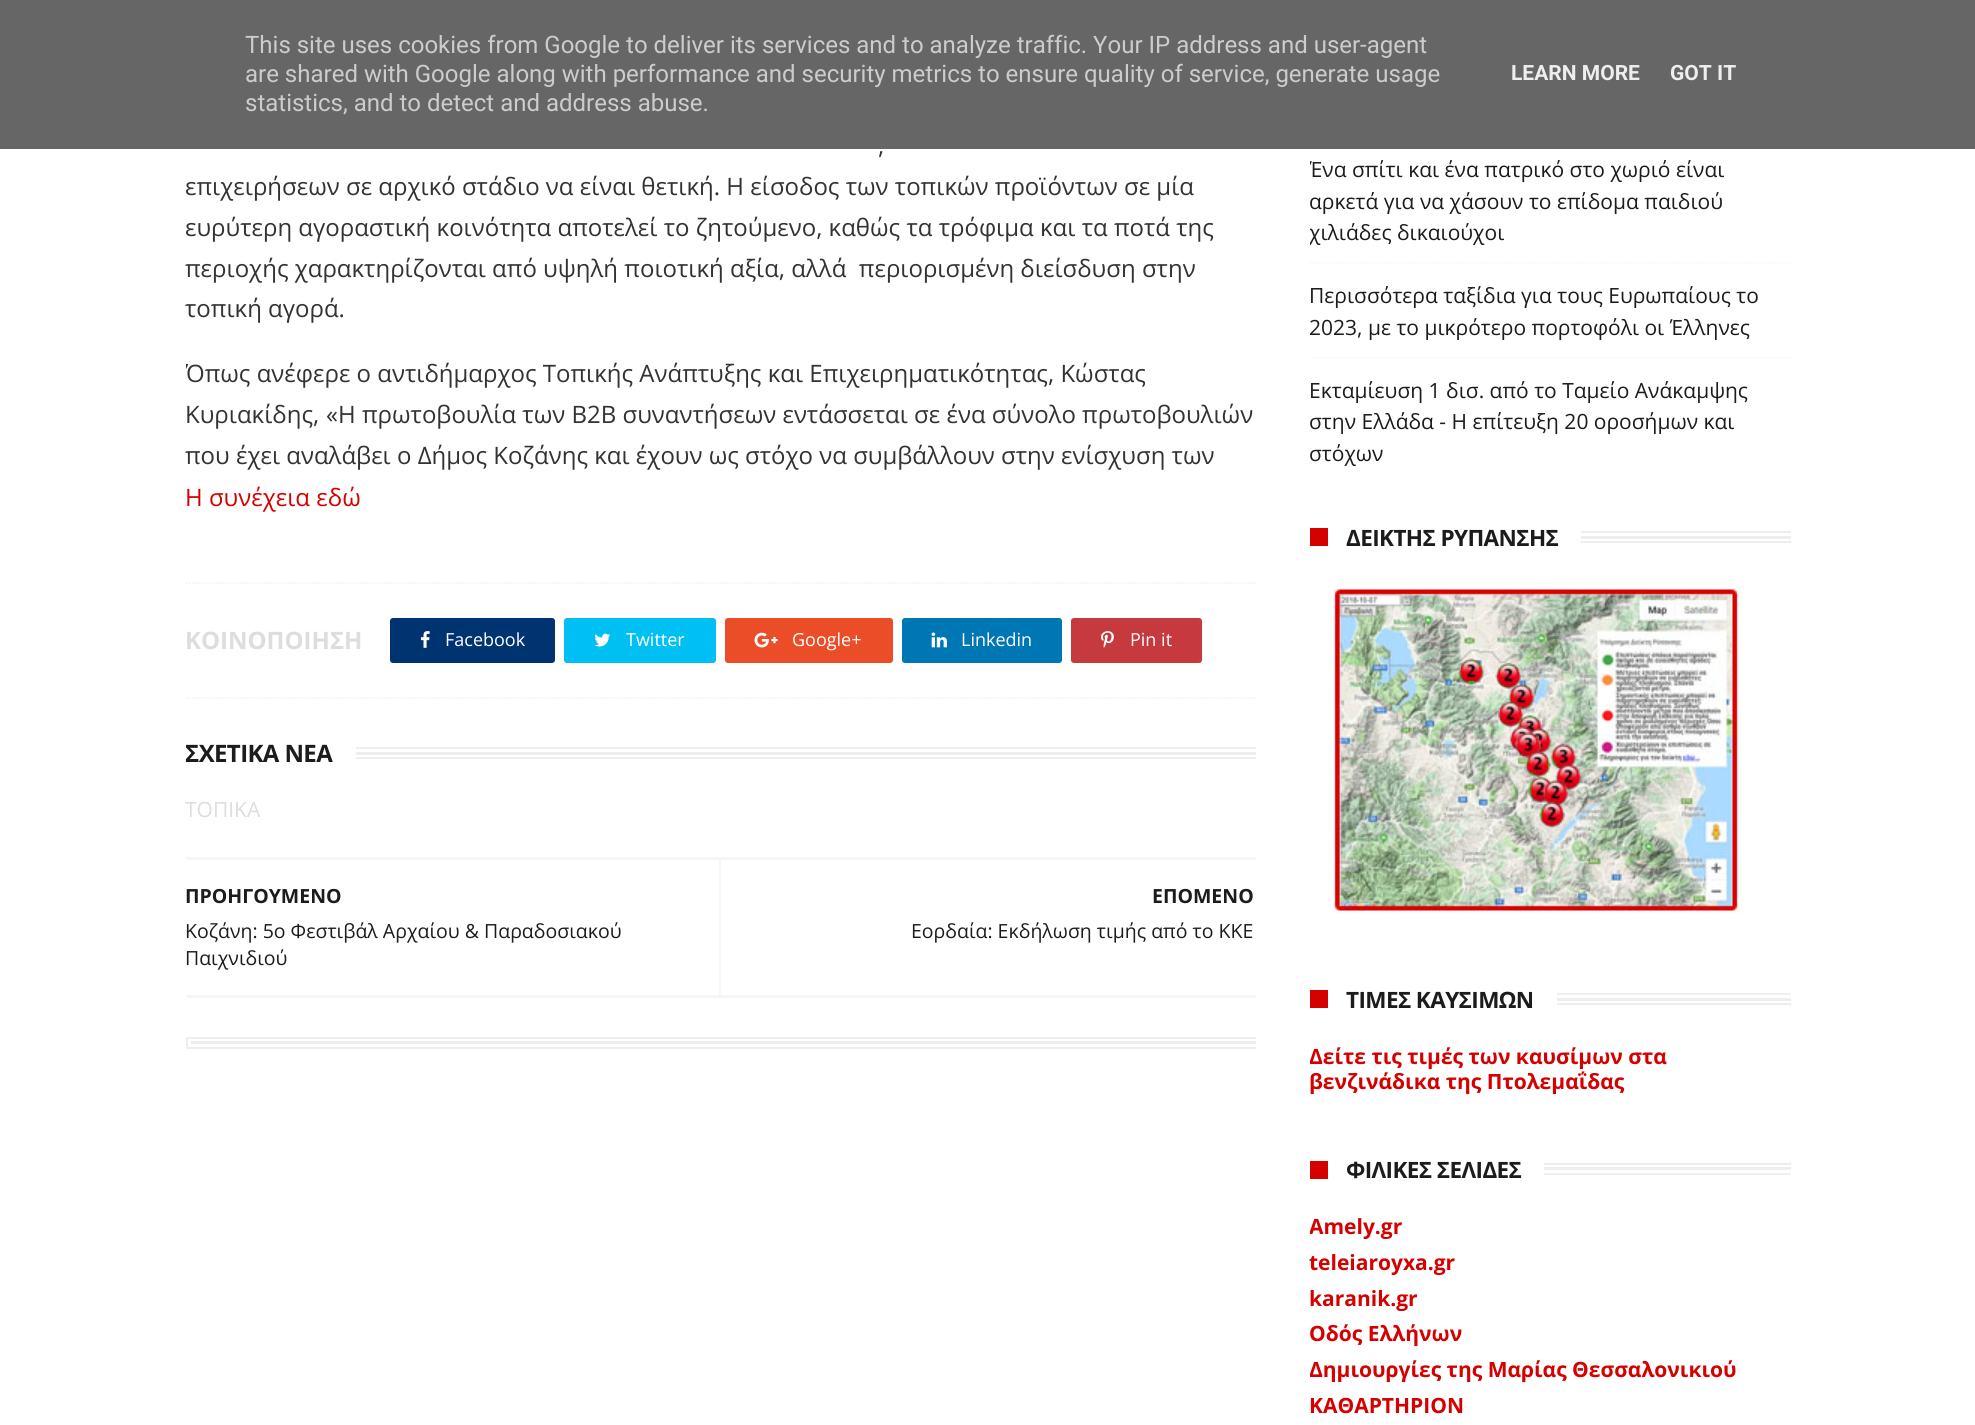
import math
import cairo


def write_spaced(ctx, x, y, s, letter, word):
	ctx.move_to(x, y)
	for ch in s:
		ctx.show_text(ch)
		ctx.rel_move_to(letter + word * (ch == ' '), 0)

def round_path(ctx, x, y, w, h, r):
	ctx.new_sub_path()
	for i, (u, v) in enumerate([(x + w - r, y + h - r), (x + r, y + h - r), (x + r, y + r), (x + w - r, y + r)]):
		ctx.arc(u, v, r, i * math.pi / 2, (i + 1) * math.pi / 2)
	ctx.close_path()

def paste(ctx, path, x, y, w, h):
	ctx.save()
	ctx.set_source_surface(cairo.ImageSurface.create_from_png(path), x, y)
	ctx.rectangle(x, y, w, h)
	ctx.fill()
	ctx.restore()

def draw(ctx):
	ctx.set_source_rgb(1, 1, 1)
	ctx.paint()
	ctx.set_source_rgb(0.4, 0.4, 0.4)
	ctx.rectangle(0, 0, 1975, 149)
	ctx.fill()
	ctx.select_font_face('Roboto')
	ctx.set_font_size(24)
	ctx.set_source_rgb(0.8, 0.8, 0.8)
	for x, y, s in [
		(245, 53, 'This site uses cookies from Google to deliver its services and to analyze traffic. Your IP address and user-agent'),
		(245, 82, 'are shared with Google along with performance and security metrics to ensure quality of service, generate usage'),
		(245, 111, 'statistics, and to detect and address abuse.'),
	]:
		ctx.move_to(x, y)
		ctx.show_text(s)
	ctx.select_font_face('Roboto', cairo.FONT_SLANT_NORMAL, cairo.FONT_WEIGHT_BOLD)
	ctx.set_font_size(21)
	ctx.set_source_rgb(0.933, 0.933, 0.933)
	ctx.move_to(1511, 80)
	ctx.show_text('LEARN MORE')
	ctx.move_to(1670, 80)
	ctx.show_text('GOT IT')
	ctx.select_font_face('Open Sans')
	ctx.set_font_size(24)
	ctx.set_source_rgb(0.2, 0.2, 0.2)
	for x, y, s in [
		(878, 154, ','),
		(185, 195, 'επιχειρήσεων σε αρχικό στάδιο να είναι θετική. Η είσοδος των τοπικών προϊόντων σε μία'),
		(185, 236, 'ευρύτερη αγοραστική κοινότητα αποτελεί το ζητούμενο, καθώς τα τρόφιμα και τα ποτά της'),
		(185, 277, 'περιοχής χαρακτηρίζονται από υψηλή ποιοτική αξία, αλλά  περιορισμένη διείσδυση στην'),
		(185, 317, 'τοπική αγορά.'),
	]:
		ctx.move_to(x, y)
		ctx.show_text(s)
	ctx.save()
	ctx.rectangle(186, 0, 1070, 477)
	ctx.clip()
	ctx.move_to(185, 382)
	ctx.show_text('Όπως ανέφερε ο αντιδήμαρχος Τοπικής Ανάπτυξης και Επιχειρηματικότητας, Κώστας')
	ctx.restore()
	ctx.move_to(185, 423)
	ctx.show_text('Κυριακίδης,')
	ctx.select_font_face('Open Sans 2')
	ctx.move_to(326, 423)
	ctx.show_text('«')
	ctx.select_font_face('Open Sans')
	ctx.move_to(338, 423)
	ctx.show_text('Η πρωτοβουλία των B2B συναντήσεων εντάσσεται σε ένα σύνολο πρωτοβουλιών')
	ctx.move_to(185, 464)
	ctx.show_text('που έχει αναλάβει ο Δήμος Κοζάνης και έχουν ως στόχο να συμβάλλουν στην ενίσχυση των')
	ctx.set_source_rgb(0.835, 0, 0)
	ctx.move_to(185, 506)
	ctx.show_text('Η συνέχεια εδώ')
	ctx.new_path()
	ctx.move_to(186, 583)
	ctx.line_to(1255.5, 583)
	ctx.set_source_rgb(0.941, 0.941, 0.941)
	ctx.set_line_width(1.5)
	ctx.set_dash([1.5, 1.5])
	ctx.stroke()
	ctx.new_path()
	ctx.move_to(186, 698)
	ctx.line_to(1255.5, 698)
	ctx.stroke()
	ctx.select_font_face('Open Sans', cairo.FONT_SLANT_NORMAL, cairo.FONT_WEIGHT_BOLD)
	ctx.set_source_rgb(0.867, 0.867, 0.867)
	ctx.move_to(185, 649)
	ctx.show_text('ΚΟΙΝΟΠΟΙΗΣΗ')
	ctx.set_source_rgb(0, 0.204, 0.443)
	round_path(ctx, 390, 618, 165, 45, 3)
	ctx.fill()
	paste(ctx, 'media/1.png', 420, 631, 10, 17)
	ctx.select_font_face('Open Sans')
	ctx.set_font_size(18)
	ctx.set_source_rgb(1, 1, 1)
	ctx.move_to(445, 646)
	ctx.show_text('Facebook')
	ctx.set_source_rgb(0, 0.749, 0.953)
	round_path(ctx, 564, 618, 152, 45, 3)
	ctx.fill()
	paste(ctx, 'media/2.png', 594, 633, 17, 14)
	ctx.set_source_rgb(1, 1, 1)
	ctx.move_to(626, 646)
	ctx.show_text('Twitter')
	ctx.set_source_rgb(0.918, 0.302, 0.161)
	round_path(ctx, 725, 618, 168, 45, 3)
	ctx.fill()
	paste(ctx, 'media/3.png', 754, 632, 24, 16)
	ctx.set_source_rgb(1, 1, 1)
	ctx.move_to(792, 646)
	ctx.show_text('Google+')
	ctx.set_source_rgb(0, 0.467, 0.71)
	round_path(ctx, 902, 618, 160, 45, 3)
	ctx.fill()
	paste(ctx, 'media/4.png', 931, 632, 16, 16)
	ctx.set_source_rgb(1, 1, 1)
	ctx.move_to(961, 646)
	ctx.show_text('Linkedin')
	ctx.set_source_rgb(0.776, 0.224, 0.239)
	round_path(ctx, 1071, 618, 131, 45, 3)
	ctx.fill()
	paste(ctx, 'media/5.png', 1101, 631, 13, 17)
	ctx.set_source_rgb(1, 1, 1)
	ctx.move_to(1130, 646)
	ctx.show_text('Pin it')
	ctx.save()
	ctx.rectangle(186, 0, 1070, 1070)
	ctx.clip()
	ctx.rectangle(187, 748, 1080, 10)
	ctx.set_source_rgb(0.933, 0.933, 0.933)
	ctx.set_line_width(2)
	ctx.set_dash([])
	ctx.stroke()
	ctx.restore()
	ctx.rectangle(186, 747, 170, 12)
	ctx.fill()
	ctx.select_font_face('Open Sans', cairo.FONT_SLANT_NORMAL, cairo.FONT_WEIGHT_BOLD)
	ctx.set_font_size(24)
	ctx.set_source_rgb(0.11, 0.11, 0.11)
	write_spaced(ctx, 185, 762, 'ΣΧΕΤΙΚΑ ΝΕΑ', -0.6, 0)
	ctx.set_source_rgb(0.933, 0.933, 0.933)
	ctx.rectangle(356, 752, 900, 3)
	ctx.fill()
	ctx.select_font_face('Open Sans')
	ctx.set_font_size(21)
	ctx.set_source_rgb(0.867, 0.867, 0.867)
	ctx.move_to(185, 817)
	ctx.show_text('ΤΟΠΙΚΑ')
	ctx.set_source_rgb(0.961, 0.961, 0.961)
	ctx.rectangle(186, 857, 1070, 3)
	ctx.rectangle(186, 995, 1070, 3)
	ctx.rectangle(719, 860, 2, 135)
	ctx.fill()
	ctx.select_font_face('Open Sans', cairo.FONT_SLANT_NORMAL, cairo.FONT_WEIGHT_BOLD)
	ctx.set_font_size(19.5)
	ctx.set_source_rgb(0.11, 0.11, 0.11)
	ctx.move_to(185, 903)
	ctx.show_text('ΠΡΟΗΓΟΥΜΕΝΟ')
	ctx.select_font_face('Open Sans')
	ctx.move_to(185, 938)
	ctx.show_text('Κοζάνη: 5ο Φεστιβάλ Αρχαίου & Παραδοσιακού')
	ctx.move_to(185, 965)
	ctx.show_text('Παιχνιδιού')
	ctx.select_font_face('Open Sans', cairo.FONT_SLANT_NORMAL, cairo.FONT_WEIGHT_BOLD)
	ctx.move_to(1152, 903)
	ctx.show_text('ΕΠΟΜΕΝΟ')
	ctx.select_font_face('Open Sans')
	ctx.move_to(911, 938)
	ctx.show_text('Εορδαία: Εκδήλωση τιμής από το ΚΚΕ')
	ctx.save()
	ctx.rectangle(186, 0, 1070, 1070)
	ctx.clip()
	ctx.rectangle(187, 1038, 1080, 10)
	ctx.set_source_rgb(0.933, 0.933, 0.933)
	ctx.set_line_width(2)
	ctx.set_dash([])
	ctx.stroke()
	ctx.restore()
	ctx.set_source_rgb(0.933, 0.933, 0.933)
	ctx.rectangle(191, 1041, 1065, 3)
	ctx.fill()
	ctx.save()
	ctx.rectangle(1310, 153, 481, 110)
	ctx.clip()
	ctx.set_font_size(21)
	ctx.set_source_rgb(0.11, 0.11, 0.11)
	ctx.move_to(1309, 177)
	ctx.show_text('Ένα σπίτι και ένα πατρικό στο χωριό είναι')
	ctx.restore()
	ctx.set_font_size(21)
	ctx.set_source_rgb(0.11, 0.11, 0.11)
	ctx.move_to(1309, 209)
	ctx.show_text('αρκετά για να χάσουν το επίδομα παιδιού')
	ctx.save()
	ctx.rectangle(1310, 153, 481, 110)
	ctx.clip()
	ctx.move_to(1309, 240)
	ctx.show_text('χιλιάδες δικαιούχοι')
	ctx.restore()
	ctx.new_path()
	ctx.move_to(1309.5, 263)
	ctx.line_to(1791, 263)
	ctx.set_source_rgb(0.961, 0.961, 0.961)
	ctx.stroke()
	ctx.set_source_rgb(0.11, 0.11, 0.11)
	ctx.move_to(1309, 303)
	ctx.show_text('Περισσότερα ταξίδια για τους Ευρωπαίους το')
	ctx.move_to(1309, 335)
	ctx.show_text('2023, με το μικρότερο πορτοφόλι οι Έλληνες')
	ctx.new_path()
	ctx.move_to(1309.5, 358)
	ctx.line_to(1791, 358)
	ctx.set_source_rgb(0.961, 0.961, 0.961)
	ctx.stroke()
	ctx.set_source_rgb(0.11, 0.11, 0.11)
	for x, y, s in [
		(1309, 398, 'Εκταμίευση 1 δισ. από το Ταμείο Ανάκαμψης'),
		(1309, 429, 'στην Ελλάδα - Η επίτευξη 20 οροσήμων και'),
		(1309, 461, 'στόχων'),
	]:
		ctx.move_to(x, y)
		ctx.show_text(s)
	ctx.save()
	ctx.rectangle(1310, 513, 481, 417)
	ctx.clip()
	ctx.rectangle(1311, 532, 491, 10)
	ctx.set_source_rgb(0.933, 0.933, 0.933)
	ctx.set_line_width(2)
	ctx.set_dash([])
	ctx.stroke()
	ctx.restore()
	ctx.set_source_rgb(1, 1, 1)
	ctx.rectangle(1310, 531, 271, 12)
	ctx.fill()
	ctx.set_source_rgb(0.835, 0, 0)
	ctx.rectangle(1310, 528, 18, 18)
	ctx.fill()
	ctx.select_font_face('Open Sans', cairo.FONT_SLANT_NORMAL, cairo.FONT_WEIGHT_BOLD)
	ctx.set_font_size(22.5)
	ctx.set_source_rgb(0.11, 0.11, 0.11)
	write_spaced(ctx, 1346, 546, 'ΔΕΙΚΤΗΣ ΡΥΠΑΝΣΗΣ', -0.6, 0)
	ctx.set_source_rgb(0.933, 0.933, 0.933)
	ctx.rectangle(1581, 536, 210, 3)
	ctx.fill()
	paste(ctx, 'media/6.png', 1333, 589, 409, 325)
	ctx.save()
	ctx.rectangle(1310, 975, 481, 125)
	ctx.clip()
	ctx.rectangle(1311, 994, 491, 10)
	ctx.set_line_width(2)
	ctx.set_dash([])
	ctx.stroke()
	ctx.restore()
	ctx.set_source_rgb(1, 1, 1)
	ctx.rectangle(1310, 993, 247, 12)
	ctx.fill()
	ctx.set_source_rgb(0.835, 0, 0)
	ctx.rectangle(1310, 990, 18, 18)
	ctx.fill()
	ctx.set_source_rgb(0.11, 0.11, 0.11)
	write_spaced(ctx, 1346, 1008, 'ΤΙΜΕΣ ΚΑΥΣΙΜΩΝ', -0.6, 0)
	ctx.set_source_rgb(0.933, 0.933, 0.933)
	ctx.rectangle(1557, 998, 234, 3)
	ctx.fill()
	ctx.save()
	ctx.rectangle(1310, 975, 481, 125)
	ctx.clip()
	ctx.set_font_size(21)
	ctx.set_source_rgb(0.835, 0, 0)
	ctx.move_to(1309, 1064)
	ctx.show_text('Δείτε τις τιμές των καυσίμων στα')
	ctx.restore()
	ctx.set_font_size(21)
	ctx.set_source_rgb(0.835, 0, 0)
	ctx.move_to(1309, 1089)
	ctx.show_text('βενζινάδικα της Πτολεμαΐδας')
	ctx.save()
	ctx.rectangle(1310, 1145, 481, 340)
	ctx.clip()
	ctx.rectangle(1311, 1164, 491, 10)
	ctx.set_source_rgb(0.933, 0.933, 0.933)
	ctx.set_line_width(2)
	ctx.set_dash([])
	ctx.stroke()
	ctx.restore()
	ctx.set_source_rgb(1, 1, 1)
	ctx.rectangle(1310, 1163, 234, 12)
	ctx.fill()
	ctx.set_source_rgb(0.835, 0, 0)
	ctx.rectangle(1310, 1161, 18, 18)
	ctx.fill()
	ctx.set_font_size(22.5)
	ctx.set_source_rgb(0.11, 0.11, 0.11)
	write_spaced(ctx, 1346, 1178, 'ΦΙΛΙΚΕΣ ΣΕΛΙΔΕΣ', -0.6, 0)
	ctx.set_source_rgb(0.933, 0.933, 0.933)
	ctx.rectangle(1544, 1167, 247, 3)
	ctx.fill()
	ctx.save()
	ctx.rectangle(1310, 1145, 481, 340)
	ctx.clip()
	ctx.set_font_size(21)
	ctx.set_source_rgb(0.835, 0, 0)
	ctx.move_to(1309, 1234)
	ctx.show_text('Amely.gr')
	ctx.restore()
	ctx.set_font_size(21)
	ctx.set_source_rgb(0.835, 0, 0)
	for x, y, s in [
		(1309, 1270, 'teleiaroyxa.gr'),
		(1309, 1306, 'karanik.gr'),
		(1309, 1341, 'Οδός Ελλήνων'),
	]:
		ctx.move_to(x, y)
		ctx.show_text(s)
	ctx.save()
	ctx.rectangle(1310, 1145, 481, 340)
	ctx.clip()
	ctx.move_to(1309, 1377)
	ctx.show_text('Δημιουργίες της Μαρίας Θεσσαλονικιού')
	ctx.restore()
	ctx.move_to(1309, 1413)
	ctx.show_text('ΚΑΘΑΡΤΗΡΙΟΝ')


surface = cairo.ImageSurface(cairo.FORMAT_RGB24, 1975, 1425)
ctx = cairo.Context(surface)
options = cairo.FontOptions()
options.set_hint_metrics(cairo.HINT_METRICS_OFF)
options.set_hint_style(cairo.HINT_STYLE_NONE)
ctx.set_font_options(options)
ctx.set_miter_limit(4)
draw(ctx)
surface.write_to_png('image.png')
